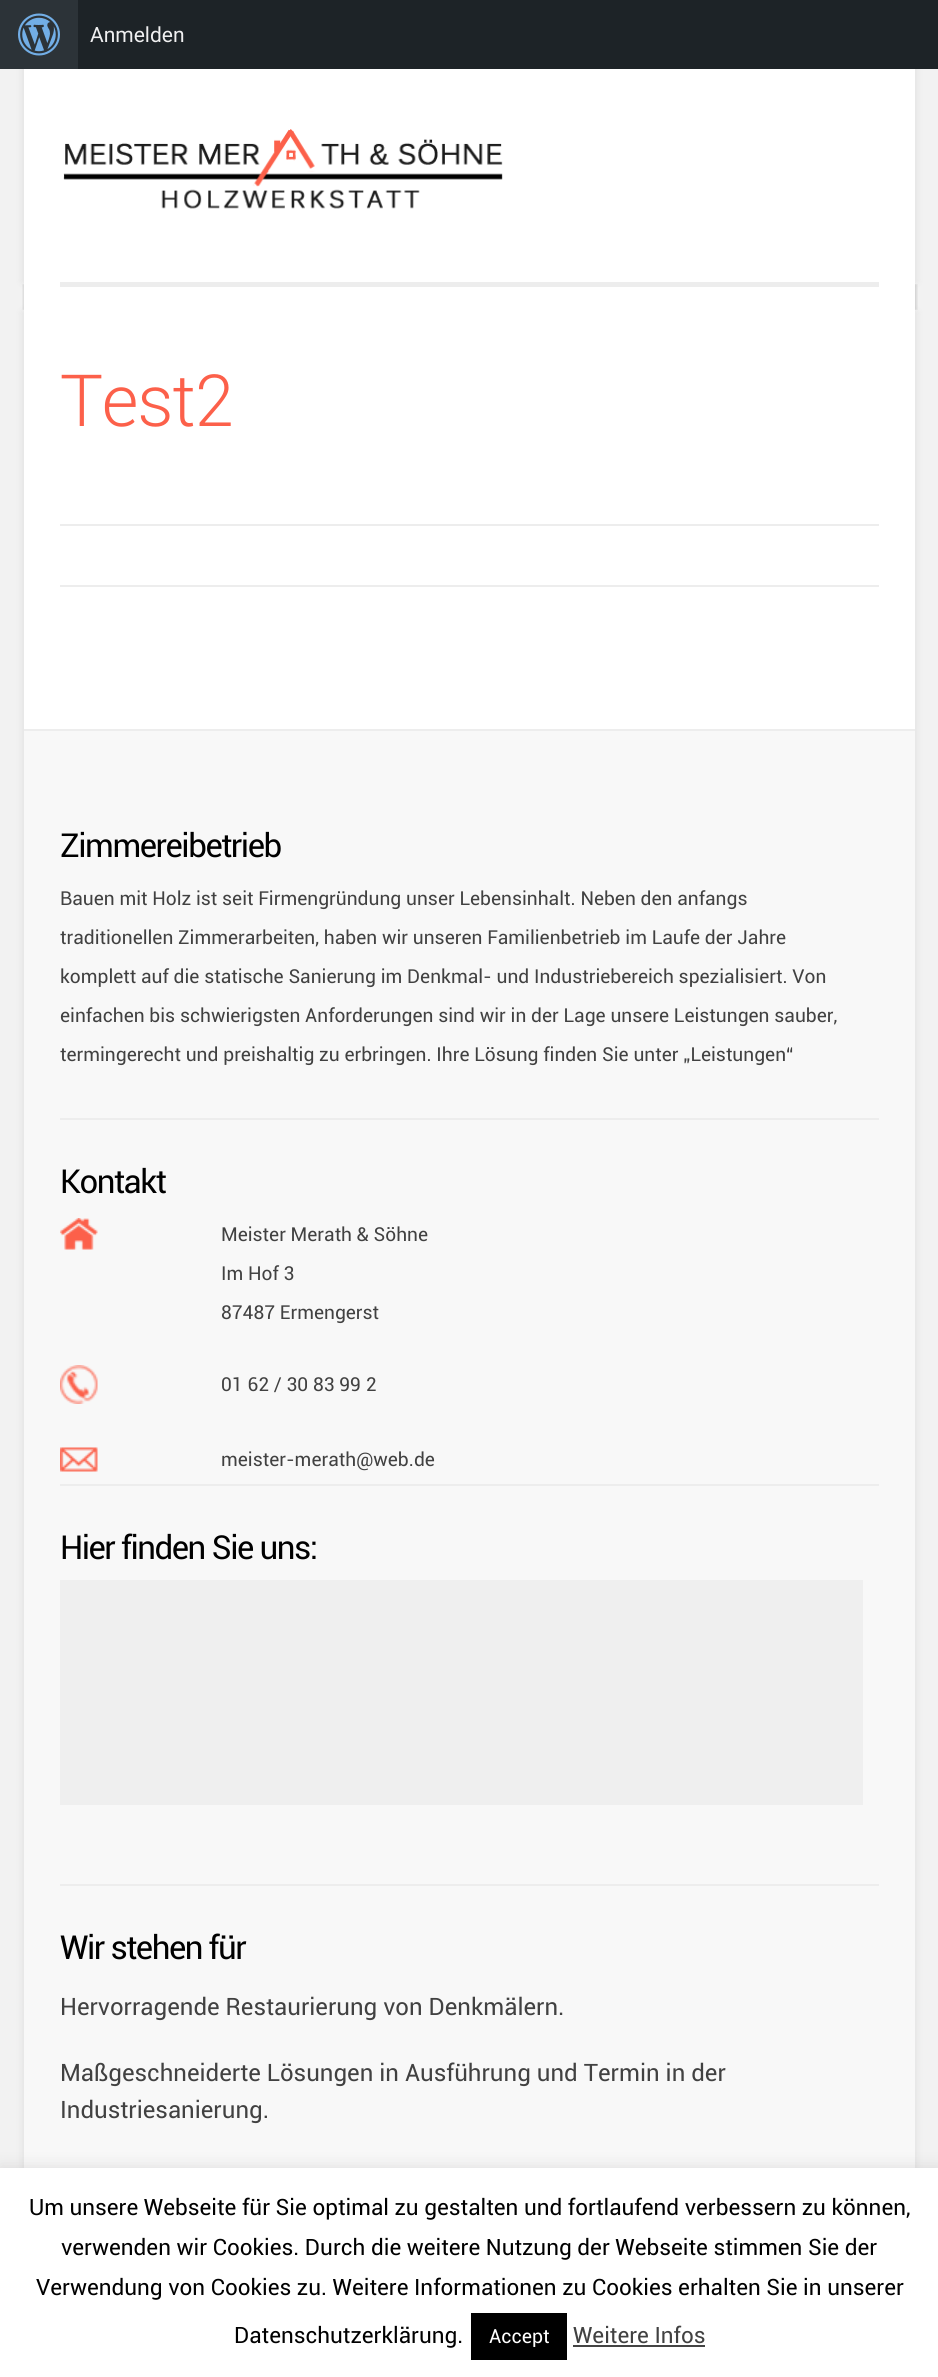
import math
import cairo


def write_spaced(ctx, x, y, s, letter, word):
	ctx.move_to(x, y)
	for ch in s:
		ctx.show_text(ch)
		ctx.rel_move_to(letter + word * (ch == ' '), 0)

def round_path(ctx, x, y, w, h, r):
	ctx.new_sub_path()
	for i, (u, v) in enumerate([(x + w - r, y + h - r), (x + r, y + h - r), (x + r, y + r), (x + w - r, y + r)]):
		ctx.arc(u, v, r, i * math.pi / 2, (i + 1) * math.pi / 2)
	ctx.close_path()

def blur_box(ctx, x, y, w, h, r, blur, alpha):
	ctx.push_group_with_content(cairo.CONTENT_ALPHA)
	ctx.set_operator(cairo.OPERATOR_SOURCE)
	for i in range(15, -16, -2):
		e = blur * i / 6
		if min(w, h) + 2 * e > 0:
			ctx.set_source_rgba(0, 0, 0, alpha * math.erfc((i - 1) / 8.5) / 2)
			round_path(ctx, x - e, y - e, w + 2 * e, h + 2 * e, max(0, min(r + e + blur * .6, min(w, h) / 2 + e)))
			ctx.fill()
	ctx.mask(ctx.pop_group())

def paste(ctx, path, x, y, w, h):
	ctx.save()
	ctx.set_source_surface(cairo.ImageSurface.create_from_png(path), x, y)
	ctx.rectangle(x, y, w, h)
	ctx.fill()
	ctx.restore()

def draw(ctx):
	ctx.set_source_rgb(0.949, 0.949, 0.949)
	ctx.paint()
	ctx.set_source_rgb(0, 0, 0)
	blur_box(ctx, 24, 33, 891, 249, 0, 4.5, 0.1)
	ctx.set_source_rgb(1, 1, 1)
	ctx.rectangle(24, 69, 891, 213)
	ctx.fill()
	paste(ctx, 'media/1.png', 63, 129, 440, 80)
	ctx.set_source_rgb(0.114, 0.137, 0.153)
	ctx.rectangle(78, 0, 860, 69)
	ctx.fill()
	ctx.set_source_rgb(0.173, 0.2, 0.22)
	ctx.rectangle(0, 0, 78, 69)
	ctx.fill()
	paste(ctx, 'media/2.png', 18, 13, 42, 43)
	ctx.select_font_face('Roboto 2')
	ctx.set_font_size(21)
	ctx.set_source_rgb(0.941, 0.941, 0.945)
	ctx.move_to(90, 42)
	ctx.show_text('Anmelden')
	ctx.set_source_rgb(0, 0, 0)
	blur_box(ctx, 24, 312, 891, 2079, 0, 4.5, 0.1)
	ctx.set_source_rgb(1, 1, 1)
	ctx.rectangle(24, 282, 891, 447)
	ctx.fill()
	ctx.save()
	ctx.rectangle(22, 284, 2, 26)
	ctx.clip()
	ctx.set_source_rgb(0, 0, 0)
	blur_box(ctx, 24, 285, 2, 24, 0, 2, 0.2)
	ctx.restore()
	ctx.set_source_rgb(0.929, 0.929, 0.929)
	ctx.rectangle(60, 282, 819, 5)
	ctx.fill()
	ctx.save()
	ctx.rectangle(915, 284, 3, 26)
	ctx.clip()
	ctx.set_source_rgb(0, 0, 0)
	blur_box(ctx, 914, 285, 2, 24, 0, 2, 0.2)
	ctx.restore()
	ctx.select_font_face('Roboto Light')
	ctx.set_font_size(72)
	ctx.set_source_rgb(0.988, 0.376, 0.29)
	write_spaced(ctx, 60, 426, 'Test2', -1.5, 0)
	ctx.set_source_rgb(0.929, 0.929, 0.929)
	ctx.rectangle(60, 524, 819, 2)
	ctx.rectangle(60, 585, 819, 2)
	ctx.fill()
	ctx.set_source_rgb(0.969, 0.969, 0.969)
	ctx.rectangle(24, 731, 891, 1437)
	ctx.fill()
	ctx.set_source_rgb(0.929, 0.929, 0.929)
	ctx.rectangle(24, 729, 891, 2)
	ctx.rectangle(60, 1118, 819, 2)
	ctx.fill()
	ctx.select_font_face('Roboto')
	ctx.set_font_size(33)
	ctx.set_source_rgb(0, 0, 0)
	write_spaced(ctx, 60, 857, 'Zimmereibetrieb', -1.5, 0)
	ctx.set_font_size(19.2)
	ctx.set_source_rgb(0.255, 0.255, 0.255)
	for x, y, s in [
		(60, 905, 'Bauen mit Holz ist seit Firmengründung unser Lebensinhalt. Neben den anfangs'),
		(60, 944, 'traditionellen Zimmerarbeiten, haben wir unseren Familienbetrieb im Laufe der Jahre'),
		(60, 983, 'komplett auf die statische Sanierung im Denkmal- und Industriebereich spezialisiert. Von'),
		(60, 1022, 'einfachen bis schwierigsten Anforderungen sind wir in der Lage unsere Leistungen sauber,'),
		(60, 1061, 'termingerecht und preishaltig zu erbringen. Ihre Lösung finden Sie unter „Leistungen“'),
	]:
		ctx.move_to(x, y)
		ctx.show_text(s)
	ctx.set_source_rgb(0.929, 0.929, 0.929)
	ctx.rectangle(60, 1484, 819, 2)
	ctx.fill()
	ctx.set_font_size(33)
	ctx.set_source_rgb(0, 0, 0)
	write_spaced(ctx, 60, 1193, 'Kontakt', -1.5, 0)
	paste(ctx, 'media/3.png', 60, 1218, 38, 32)
	ctx.set_font_size(19.2)
	ctx.set_source_rgb(0.255, 0.255, 0.255)
	for x, y, s in [
		(221, 1241, 'Meister Merath & Söhne'),
		(221, 1280, 'Im Hof 3'),
		(221, 1319, '87487 Ermengerst'),
	]:
		ctx.move_to(x, y)
		ctx.show_text(s)
	paste(ctx, 'media/4.png', 60, 1365, 38, 39)
	ctx.move_to(221, 1391)
	ctx.show_text('01 62 / 30 83 99 2')
	paste(ctx, 'media/5.png', 60, 1447, 38, 25)
	ctx.move_to(221, 1466)
	ctx.show_text('meister-merath@web.de')
	ctx.set_source_rgb(0.929, 0.929, 0.929)
	ctx.rectangle(60, 1884, 819, 2)
	ctx.fill()
	ctx.set_font_size(33)
	ctx.set_source_rgb(0, 0, 0)
	write_spaced(ctx, 60, 1559, 'Hier finden Sie uns:', -1.5, 0)
	ctx.set_source_rgb(0.937, 0.937, 0.937)
	ctx.rectangle(60, 1580, 803, 225)
	ctx.fill()
	ctx.set_source_rgb(0, 0, 0)
	write_spaced(ctx, 60, 1959, 'Wir stehen für', -1.5, 0)
	ctx.set_font_size(24)
	ctx.set_source_rgb(0.255, 0.255, 0.255)
	for x, y, s in [
		(60, 2015, 'Hervorragende Restaurierung von Denkmälern.'),
		(60, 2081, 'Maßgeschneiderte Lösungen in Ausführung und Termin in der'),
		(60, 2118, 'Industriesanierung.'),
	]:
		ctx.move_to(x, y)
		ctx.show_text(s)
	ctx.set_source_rgb(0.675, 0.671, 0.671)
	blur_box(ctx, 0, 2166, 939, 210, 0, 7.5, 0.3)
	ctx.set_source_rgb(1, 1, 1)
	ctx.rectangle(0, 2168, 938, 209)
	ctx.fill()
	ctx.set_font_size(22.5)
	ctx.set_source_rgb(0, 0, 0)
	for x, y, s in [
		(29, 2215, 'Um unsere Webseite für Sie optimal zu gestalten und fortlaufend verbessern zu können,'),
		(61, 2255, 'verwenden wir Cookies. Durch die weitere Nutzung der Webseite stimmen Sie der'),
		(36, 2295, 'Verwendung von Cookies zu. Weitere Informationen zu Cookies erhalten Sie in unserer'),
		(234, 2343, 'Datenschutzerklärung.'),
	]:
		ctx.move_to(x, y)
		ctx.show_text(s)
	ctx.rectangle(471, 2313, 96, 47)
	ctx.fill()
	ctx.set_font_size(19.5)
	ctx.set_source_rgb(1, 1, 1)
	ctx.move_to(489, 2343)
	ctx.show_text('Accept')
	ctx.set_font_size(22.5)
	ctx.set_source_rgb(0.255, 0.255, 0.255)
	ctx.move_to(573, 2343)
	ctx.show_text('Weitere Infos')
	ctx.set_source_rgb(0.267, 0.267, 0.267)
	ctx.rectangle(573, 2345, 132, 2)
	ctx.fill()


surface = cairo.ImageSurface(cairo.FORMAT_RGB24, 938, 2377)
ctx = cairo.Context(surface)
options = cairo.FontOptions()
options.set_hint_metrics(cairo.HINT_METRICS_OFF)
options.set_hint_style(cairo.HINT_STYLE_NONE)
ctx.set_font_options(options)
ctx.set_miter_limit(4)
draw(ctx)
surface.write_to_png('image.png')
